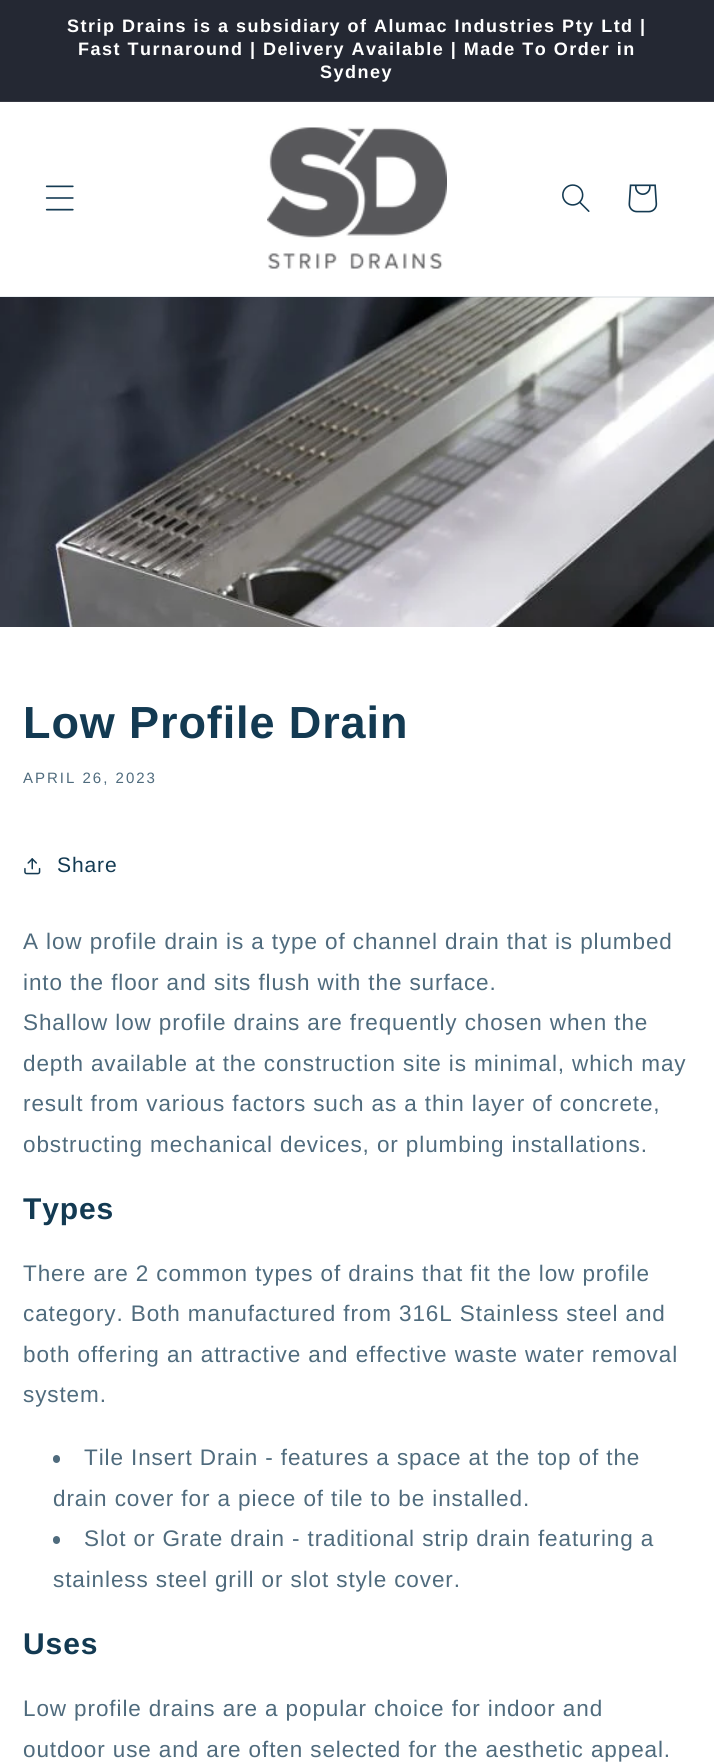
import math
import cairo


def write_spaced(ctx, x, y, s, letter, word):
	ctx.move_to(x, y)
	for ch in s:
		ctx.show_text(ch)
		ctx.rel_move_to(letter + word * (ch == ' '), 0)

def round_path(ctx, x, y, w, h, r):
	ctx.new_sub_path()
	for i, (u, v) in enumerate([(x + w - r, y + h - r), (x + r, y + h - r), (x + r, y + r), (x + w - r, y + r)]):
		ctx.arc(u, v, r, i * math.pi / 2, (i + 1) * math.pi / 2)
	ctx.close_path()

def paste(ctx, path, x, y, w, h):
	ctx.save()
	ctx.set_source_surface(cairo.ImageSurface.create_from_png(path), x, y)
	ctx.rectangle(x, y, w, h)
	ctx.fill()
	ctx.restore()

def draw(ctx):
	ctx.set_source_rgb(1, 1, 1)
	ctx.paint()
	ctx.set_source_rgb(0.141, 0.157, 0.2)
	ctx.rectangle(0, 0, 714, 101)
	ctx.fill()
	ctx.set_source_rgb(0.212, 0.224, 0.263)
	ctx.rectangle(0, 101, 714, 1)
	ctx.fill()
	ctx.select_font_face('Arimo', cairo.FONT_SLANT_NORMAL, cairo.FONT_WEIGHT_BOLD)
	ctx.set_font_size(18)
	ctx.set_source_rgb(1, 1, 1)
	for x, y, s in [
		(67, 32, 'Strip Drains is a subsidiary of Alumac Industries Pty Ltd |'),
		(78, 55, 'Fast Turnaround | Delivery Available | Made To Order in'),
		(320, 78, 'Sydney'),
	]:
		write_spaced(ctx, x, y, s, 1.5, 0)
	paste(ctx, 'media/5.png', 0, 297, 714, 330)
	ctx.set_source_rgba(0.078, 0.227, 0.322, 0.08)
	ctx.rectangle(0, 296, 714, 2)
	ctx.fill()
	paste(ctx, 'media/1.png', 45, 185, 29, 26)
	paste(ctx, 'media/2.png', 267, 127, 180, 142)
	paste(ctx, 'media/3.png', 562, 184, 28, 28)
	paste(ctx, 'media/4.png', 628, 184, 30, 29)
	ctx.set_font_size(45)
	ctx.set_source_rgb(0.078, 0.227, 0.322)
	write_spaced(ctx, 23, 738, 'Low Profile Drain', 0.9, 0)
	ctx.select_font_face('Arimo')
	ctx.set_font_size(15)
	ctx.set_source_rgb(0.31, 0.42, 0.49)
	write_spaced(ctx, 23, 783, 'APRIL 26, 2023', 2, 0)
	paste(ctx, 'media/6.png', 24, 858, 17, 17)
	ctx.set_font_size(21)
	ctx.set_source_rgb(0.078, 0.227, 0.322)
	write_spaced(ctx, 57, 872, 'Share', 0.9, 0)
	ctx.set_font_size(22.5)
	ctx.set_source_rgb(0.31, 0.42, 0.49)
	for x, y, s in [
		(23, 949, 'A low profile drain is a type of channel drain that is plumbed'),
		(23, 990, 'into the floor and sits flush with the surface.'),
		(23, 1030, 'Shallow low profile drains are frequently chosen when the'),
		(23, 1071, 'depth available at the construction site is minimal, which may'),
		(23, 1111, 'result from various factors such as a thin layer of concrete,'),
		(23, 1152, 'obstructing mechanical devices, or plumbing installations.'),
	]:
		write_spaced(ctx, x, y, s, 0.9, 0)
	ctx.select_font_face('Arimo', cairo.FONT_SLANT_NORMAL, cairo.FONT_WEIGHT_BOLD)
	ctx.set_font_size(30)
	ctx.set_source_rgb(0.078, 0.227, 0.322)
	write_spaced(ctx, 23, 1219, 'Types', 0.9, 0)
	ctx.select_font_face('Arimo')
	ctx.set_font_size(22.5)
	ctx.set_source_rgb(0.31, 0.42, 0.49)
	for x, y, s in [
		(23, 1281, 'There are 2 common types of drains that fit the low profile'),
		(23, 1321, 'category. Both manufactured from 316L Stainless steel and'),
		(23, 1362, 'both offering an attractive and effective waste water removal'),
		(23, 1402, 'system.'),
	]:
		write_spaced(ctx, x, y, s, 0.9, 0)
	round_path(ctx, 53, 1455, 7, 8, 3.5)
	ctx.fill()
	write_spaced(ctx, 84, 1465, 'Tile Insert Drain - features a space at the top of the', 0.9, 0)
	write_spaced(ctx, 53, 1506, 'drain cover for a piece of tile to be installed.', 0.9, 0)
	round_path(ctx, 53, 1536, 7, 8, 3.5)
	ctx.fill()
	write_spaced(ctx, 84, 1546, 'Slot or Grate drain - traditional strip drain featuring a', 0.9, 0)
	write_spaced(ctx, 53, 1587, 'stainless steel grill or slot style cover.', 0.9, 0)
	ctx.select_font_face('Arimo', cairo.FONT_SLANT_NORMAL, cairo.FONT_WEIGHT_BOLD)
	ctx.set_font_size(30)
	ctx.set_source_rgb(0.078, 0.227, 0.322)
	write_spaced(ctx, 23, 1654, 'Uses', 0.9, 0)
	ctx.select_font_face('Arimo')
	ctx.set_font_size(22.5)
	ctx.set_source_rgb(0.31, 0.42, 0.49)
	write_spaced(ctx, 23, 1716, 'Low profile drains are a popular choice for indoor and', 0.9, 0)
	write_spaced(ctx, 23, 1757, 'outdoor use and are often selected for the aesthetic appeal.', 0.9, 0)


surface = cairo.ImageSurface(cairo.FORMAT_RGB24, 714, 1763)
ctx = cairo.Context(surface)
options = cairo.FontOptions()
options.set_hint_metrics(cairo.HINT_METRICS_OFF)
options.set_hint_style(cairo.HINT_STYLE_NONE)
ctx.set_font_options(options)
ctx.set_miter_limit(4)
draw(ctx)
surface.write_to_png('image.png')
